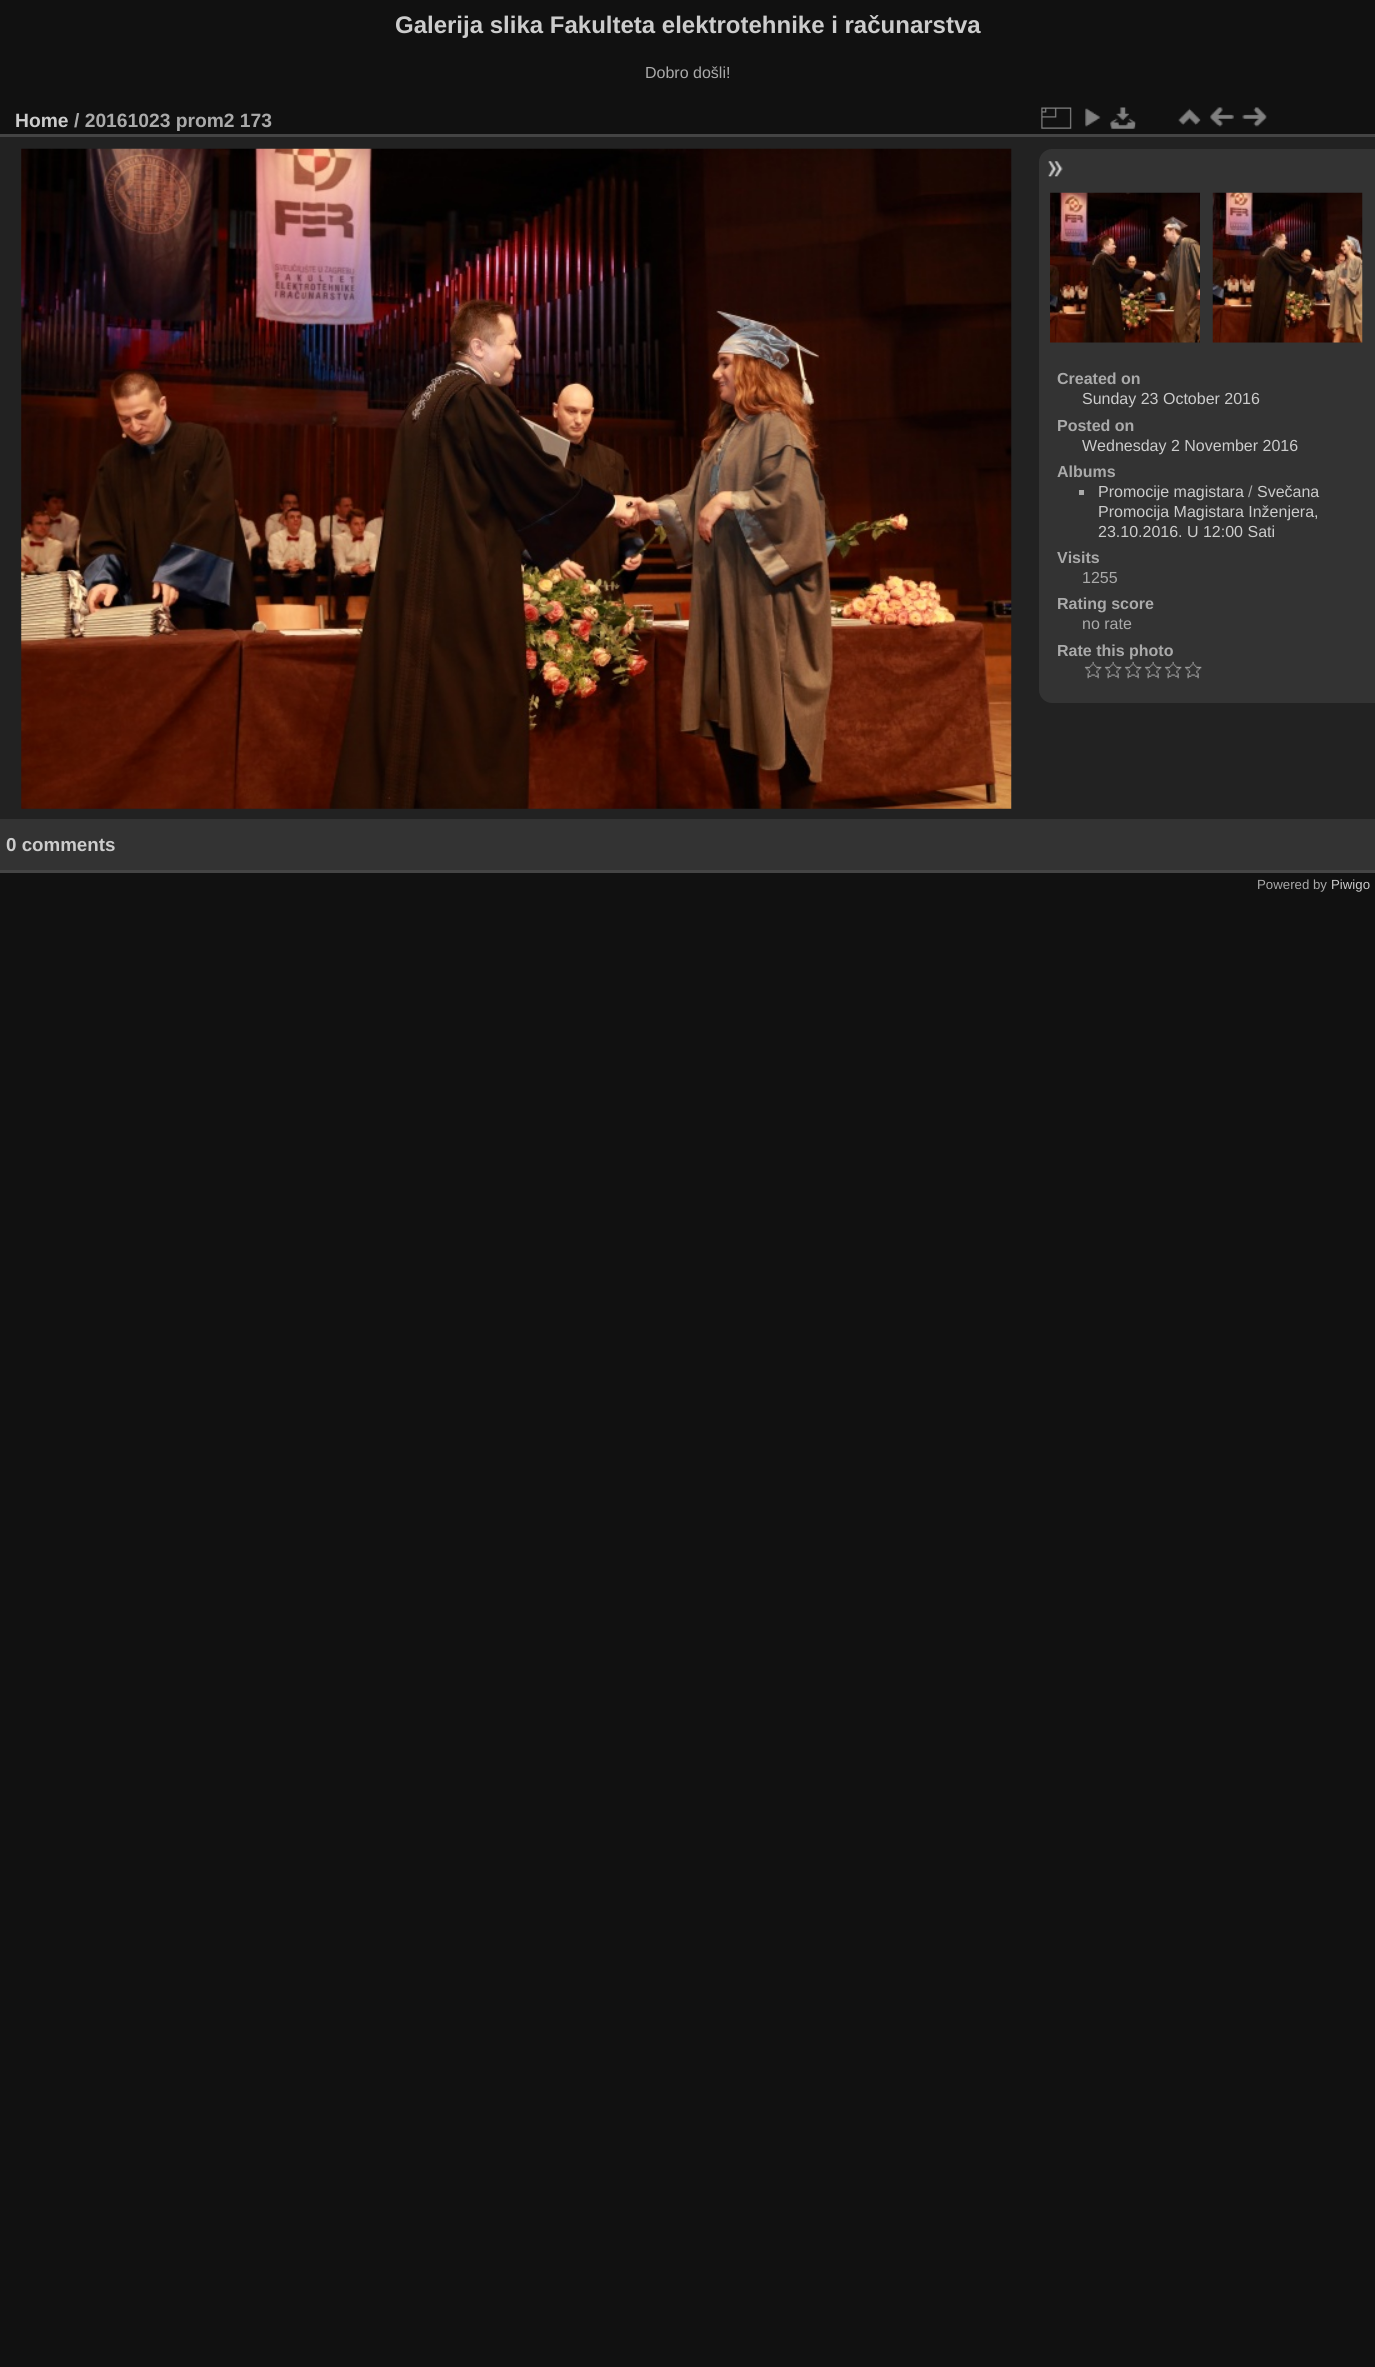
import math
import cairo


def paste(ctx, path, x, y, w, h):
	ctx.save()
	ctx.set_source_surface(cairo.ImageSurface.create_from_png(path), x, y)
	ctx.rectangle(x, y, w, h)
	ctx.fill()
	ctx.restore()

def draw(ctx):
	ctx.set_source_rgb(0.067, 0.067, 0.067)
	ctx.paint()
	ctx.select_font_face('Liberation Sans', cairo.FONT_SLANT_NORMAL, cairo.FONT_WEIGHT_BOLD)
	ctx.set_font_size(24)
	ctx.set_source_rgb(0.8, 0.8, 0.8)
	ctx.move_to(395, 33)
	ctx.show_text('Galerija slika Fakulteta elektrotehnike i računarstva')
	ctx.select_font_face('Liberation Sans')
	ctx.set_font_size(16)
	ctx.set_source_rgb(0.667, 0.667, 0.667)
	ctx.move_to(645, 78)
	ctx.show_text('Dobro došli!')
	ctx.set_source_rgb(0.133, 0.133, 0.133)
	ctx.rectangle(0, 137, 1375, 682)
	ctx.fill()
	ctx.set_source_rgb(0.267, 0.267, 0.267)
	ctx.rectangle(0, 870, 1375, 3)
	ctx.rectangle(0, 134, 1375, 3)
	ctx.fill()
	ctx.select_font_face('Liberation Sans', cairo.FONT_SLANT_NORMAL, cairo.FONT_WEIGHT_BOLD)
	ctx.set_font_size(19.25)
	ctx.set_source_rgb(0.8, 0.8, 0.8)
	ctx.move_to(15, 127)
	ctx.show_text('Home')
	ctx.set_source_rgb(0.667, 0.667, 0.667)
	ctx.move_to(74, 127)
	ctx.show_text('/ 20161023 prom2 173')
	paste(ctx, 'media/1.png', 1041, 107, 31, 22)
	paste(ctx, 'media/2.png', 1085, 108, 16, 19)
	paste(ctx, 'media/3.png', 1110, 107, 26, 22)
	paste(ctx, 'media/4.png', 1178, 108, 23, 17)
	paste(ctx, 'media/5.png', 1210, 107, 24, 20)
	paste(ctx, 'media/6.png', 1242, 107, 25, 20)
	paste(ctx, 'media/7.png', 21, 148, 991, 661)
	ctx.set_source_rgb(0.2, 0.2, 0.2)
	ctx.new_path()
	ctx.move_to(1052, 149)
	ctx.line_to(1375, 149)
	ctx.line_to(1375, 703)
	ctx.line_to(1052, 703)
	ctx.curve_to(1045, 703, 1039, 697, 1039, 690)
	ctx.line_to(1039, 162)
	ctx.curve_to(1039, 155, 1045, 149, 1052, 149)
	ctx.close_path()
	ctx.fill()
	paste(ctx, 'media/8.png', 1048, 161, 15, 16)
	paste(ctx, 'media/9.png', 1050, 192, 150, 151)
	paste(ctx, 'media/10.png', 1212, 192, 151, 151)
	ctx.set_font_size(16)
	ctx.set_source_rgb(0.667, 0.667, 0.667)
	ctx.move_to(1057, 384)
	ctx.show_text('Created on')
	ctx.select_font_face('Liberation Sans')
	ctx.set_source_rgb(0.8, 0.8, 0.8)
	ctx.move_to(1082, 404)
	ctx.show_text('Sunday 23 October 2016')
	ctx.select_font_face('Liberation Sans', cairo.FONT_SLANT_NORMAL, cairo.FONT_WEIGHT_BOLD)
	ctx.set_source_rgb(0.667, 0.667, 0.667)
	ctx.move_to(1057, 431)
	ctx.show_text('Posted on')
	ctx.select_font_face('Liberation Sans')
	ctx.set_source_rgb(0.8, 0.8, 0.8)
	ctx.move_to(1082, 451)
	ctx.show_text('Wednesday 2 November 2016')
	ctx.select_font_face('Liberation Sans', cairo.FONT_SLANT_NORMAL, cairo.FONT_WEIGHT_BOLD)
	ctx.set_source_rgb(0.667, 0.667, 0.667)
	ctx.move_to(1057, 477)
	ctx.show_text('Albums')
	ctx.rectangle(1079, 490, 5, 5)
	ctx.fill()
	ctx.select_font_face('Liberation Sans')
	ctx.set_source_rgb(0.8, 0.8, 0.8)
	ctx.move_to(1098, 497)
	ctx.show_text('Promocije magistara')
	ctx.set_source_rgb(0.667, 0.667, 0.667)
	ctx.move_to(1248, 497)
	ctx.show_text('/')
	ctx.set_source_rgb(0.8, 0.8, 0.8)
	for x, y, s in [
		(1257, 497, 'Svečana'),
		(1098, 517, 'Promocija Magistara Inženjera,'),
		(1098, 537, '23.10.2016. U 12:00 Sati'),
	]:
		ctx.move_to(x, y)
		ctx.show_text(s)
	ctx.select_font_face('Liberation Sans', cairo.FONT_SLANT_NORMAL, cairo.FONT_WEIGHT_BOLD)
	ctx.set_source_rgb(0.667, 0.667, 0.667)
	ctx.move_to(1057, 563)
	ctx.show_text('Visits')
	ctx.select_font_face('Liberation Sans')
	ctx.move_to(1082, 583)
	ctx.show_text('1255')
	ctx.select_font_face('Liberation Sans', cairo.FONT_SLANT_NORMAL, cairo.FONT_WEIGHT_BOLD)
	ctx.move_to(1057, 609)
	ctx.show_text('Rating score')
	ctx.select_font_face('Liberation Sans')
	ctx.move_to(1082, 629)
	ctx.show_text('no rate')
	ctx.select_font_face('Liberation Sans', cairo.FONT_SLANT_NORMAL, cairo.FONT_WEIGHT_BOLD)
	ctx.move_to(1057, 656)
	ctx.show_text('Rate this photo')
	paste(ctx, 'media/11.png', 1084, 661, 18, 18)
	paste(ctx, 'media/11.png', 1104, 661, 18, 18)
	paste(ctx, 'media/11.png', 1124, 661, 18, 18)
	paste(ctx, 'media/11.png', 1144, 661, 18, 18)
	paste(ctx, 'media/11.png', 1164, 661, 18, 18)
	paste(ctx, 'media/12.png', 1184, 661, 18, 18)
	ctx.set_source_rgb(0.2, 0.2, 0.2)
	ctx.rectangle(0, 819, 1375, 51)
	ctx.fill()
	ctx.set_font_size(18.75)
	ctx.set_source_rgb(0.8, 0.8, 0.8)
	ctx.move_to(6, 851)
	ctx.show_text('0 comments')
	ctx.select_font_face('Liberation Sans')
	ctx.set_font_size(13.25)
	ctx.set_source_rgb(0.667, 0.667, 0.667)
	ctx.move_to(1257, 889)
	ctx.show_text('Powered by')
	ctx.set_source_rgb(0.8, 0.8, 0.8)
	ctx.move_to(1331, 889)
	ctx.show_text('Piwigo')


surface = cairo.ImageSurface(cairo.FORMAT_RGB24, 1375, 2367)
ctx = cairo.Context(surface)
options = cairo.FontOptions()
options.set_hint_metrics(cairo.HINT_METRICS_OFF)
options.set_hint_style(cairo.HINT_STYLE_NONE)
ctx.set_font_options(options)
ctx.set_miter_limit(4)
draw(ctx)
surface.write_to_png('image.png')
